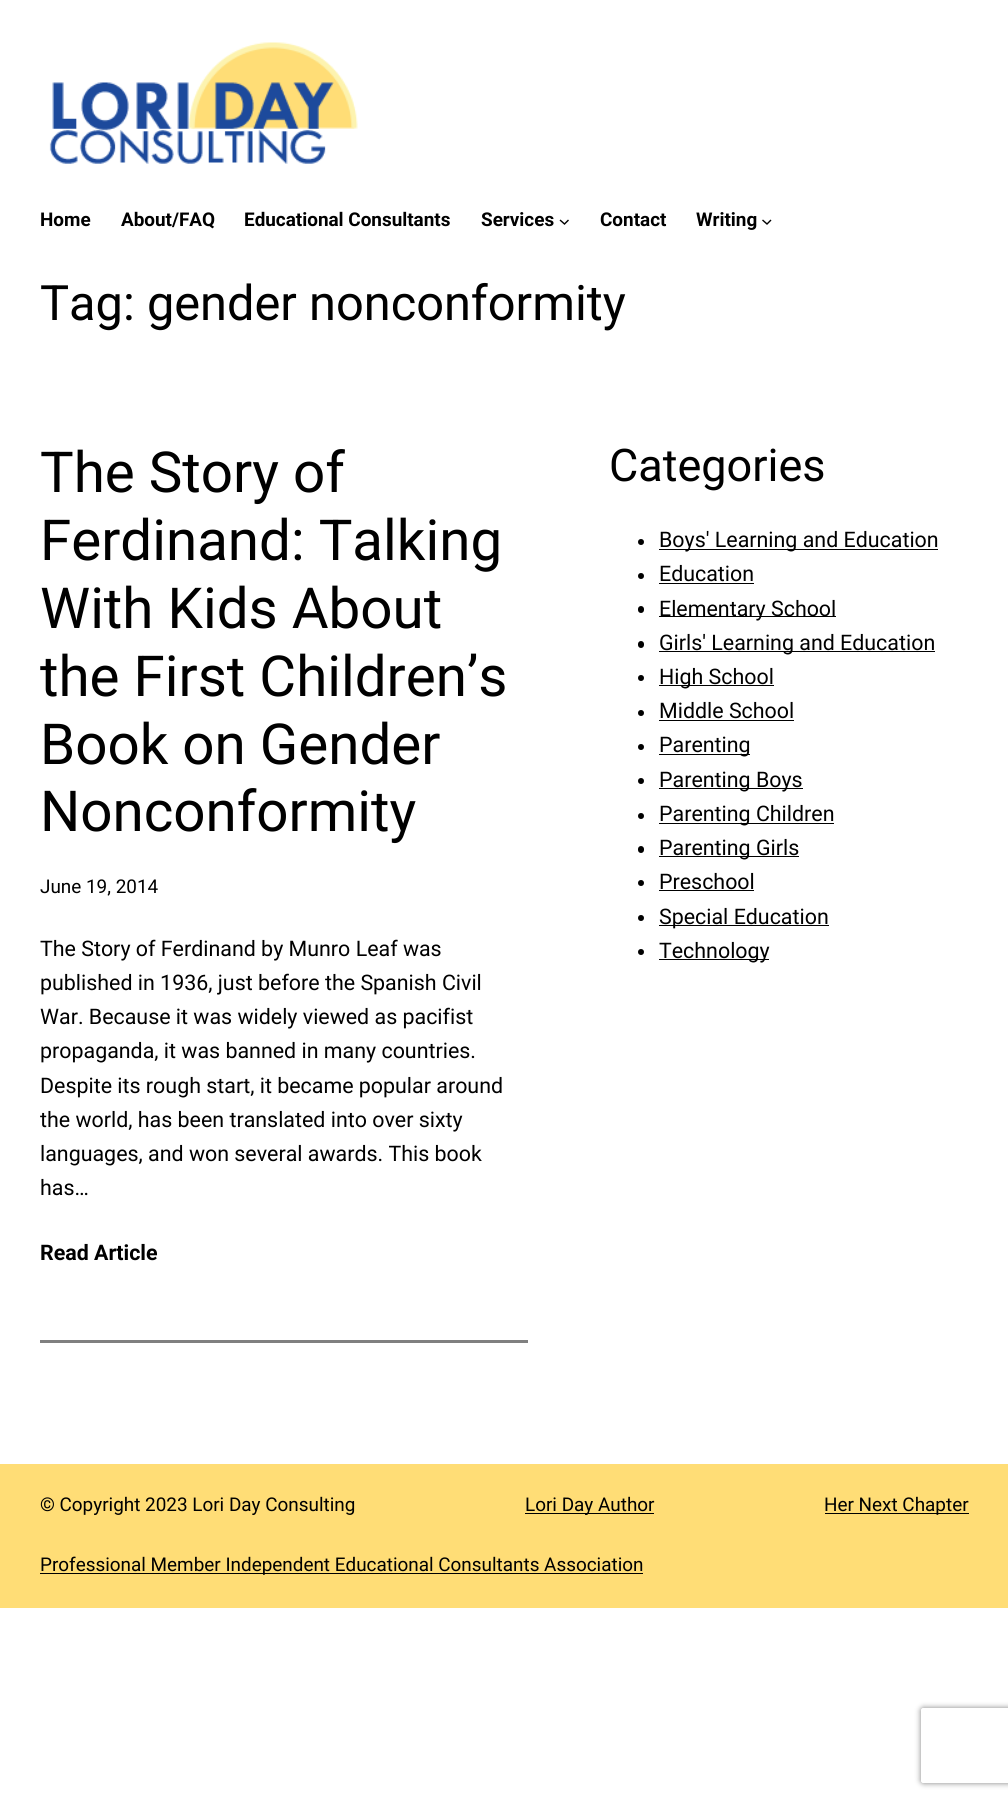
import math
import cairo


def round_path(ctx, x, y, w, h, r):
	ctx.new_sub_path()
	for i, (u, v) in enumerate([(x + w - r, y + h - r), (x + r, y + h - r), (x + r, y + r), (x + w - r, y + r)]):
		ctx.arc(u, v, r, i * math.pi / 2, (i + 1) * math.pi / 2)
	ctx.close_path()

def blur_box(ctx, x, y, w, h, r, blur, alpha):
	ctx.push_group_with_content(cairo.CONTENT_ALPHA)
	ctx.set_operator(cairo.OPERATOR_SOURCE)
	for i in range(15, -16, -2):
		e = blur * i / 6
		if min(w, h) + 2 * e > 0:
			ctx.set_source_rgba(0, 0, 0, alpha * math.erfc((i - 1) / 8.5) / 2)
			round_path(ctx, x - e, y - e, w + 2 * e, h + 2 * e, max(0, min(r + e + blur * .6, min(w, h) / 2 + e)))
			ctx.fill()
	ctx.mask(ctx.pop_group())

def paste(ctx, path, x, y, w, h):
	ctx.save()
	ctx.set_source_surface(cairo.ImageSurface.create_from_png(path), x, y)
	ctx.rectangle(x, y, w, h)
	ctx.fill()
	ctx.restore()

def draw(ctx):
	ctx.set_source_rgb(1, 1, 1)
	ctx.paint()
	paste(ctx, 'media/1.png', 49, 42, 309, 122)
	ctx.select_font_face('Roboto', cairo.FONT_SLANT_NORMAL, cairo.FONT_WEIGHT_BOLD)
	ctx.set_font_size(18.9)
	ctx.set_source_rgb(0, 0, 0)
	for x, y, s in [
		(40, 226, 'Home'),
		(121, 226, 'About/FAQ'),
		(244, 226, 'Educational Consultants'),
		(481, 226, 'Services'),
	]:
		ctx.move_to(x, y)
		ctx.show_text(s)
	ctx.new_path()
	ctx.move_to(560, 220)
	ctx.line_to(564.5, 224)
	ctx.line_to(568.5, 220)
	ctx.set_line_width(1.4)
	ctx.stroke()
	ctx.move_to(600, 226)
	ctx.show_text('Contact')
	ctx.move_to(696, 226)
	ctx.show_text('Writing')
	ctx.new_path()
	ctx.move_to(762.5, 220)
	ctx.line_to(767, 224)
	ctx.line_to(771, 220)
	ctx.stroke()
	ctx.select_font_face('Roboto')
	ctx.set_font_size(48.75)
	ctx.move_to(40, 320)
	ctx.show_text('Tag: gender nonconformity')
	ctx.set_font_size(56.5)
	for x, y, s in [
		(40, 492, 'The Story of'),
		(40, 560, 'Ferdinand: Talking'),
		(40, 628, 'With Kids About'),
		(40, 696, 'the First Children’s'),
		(40, 764, 'Book on Gender'),
		(40, 831, 'Nonconformity'),
	]:
		ctx.move_to(x, y)
		ctx.show_text(s)
	ctx.set_font_size(18.9)
	ctx.move_to(40, 893)
	ctx.show_text('June 19, 2014')
	ctx.set_font_size(21.4)
	for x, y, s in [
		(40, 956, 'The Story of Ferdinand by Munro Leaf was'),
		(40, 990, 'published in 1936, just before the Spanish Civil'),
		(40, 1024, 'War. Because it was widely viewed as pacifist'),
		(40, 1058, 'propaganda, it was banned in many countries.'),
		(40, 1093, 'Despite its rough start, it became popular around'),
		(40, 1127, 'the world, has been translated into over sixty'),
		(40, 1161, 'languages, and won several awards. This book'),
		(40, 1195, 'has…'),
	]:
		ctx.move_to(x, y)
		ctx.show_text(s)
	ctx.select_font_face('Roboto', cairo.FONT_SLANT_NORMAL, cairo.FONT_WEIGHT_BOLD)
	ctx.move_to(40, 1260)
	ctx.show_text('Read Article')
	ctx.set_source_rgb(0.502, 0.502, 0.502)
	ctx.rectangle(40, 1340, 488, 3)
	ctx.fill()
	ctx.select_font_face('Roboto')
	ctx.set_font_size(45)
	ctx.set_source_rgb(0, 0, 0)
	ctx.move_to(609, 481)
	ctx.show_text('Categories')
	ctx.new_path()
	ctx.arc(641, 542, 3, 0, 2 * math.pi)
	ctx.fill()
	ctx.rectangle(659, 549, 279, 1)
	ctx.fill()
	ctx.set_font_size(21.4)
	ctx.move_to(659, 547)
	ctx.show_text('Boys\' Learning and Education')
	ctx.new_path()
	ctx.arc(641, 576, 3, 0, 2 * math.pi)
	ctx.fill()
	ctx.move_to(659, 581)
	ctx.show_text('Education')
	ctx.rectangle(659, 583, 95, 1)
	ctx.fill()
	round_path(ctx, 638, 606, 6, 7, 3)
	ctx.fill()
	ctx.rectangle(659, 616, 177, 1)
	ctx.fill()
	ctx.move_to(659, 616)
	ctx.show_text('Elementary School')
	round_path(ctx, 638, 641, 6, 7, 3)
	ctx.fill()
	ctx.rectangle(659, 651, 276, 1)
	ctx.fill()
	ctx.move_to(659, 650)
	ctx.show_text('Girls\' Learning and Education')
	ctx.new_path()
	ctx.arc(641, 678, 3, 0, 2 * math.pi)
	ctx.fill()
	ctx.rectangle(659, 685, 115, 1)
	ctx.fill()
	ctx.move_to(659, 684)
	ctx.show_text('High School')
	ctx.new_path()
	ctx.arc(641, 713, 3, 0, 2 * math.pi)
	ctx.fill()
	ctx.move_to(659, 718)
	ctx.show_text('Middle School')
	ctx.rectangle(659, 720, 135, 1)
	ctx.fill()
	ctx.arc(641, 747, 3, 0, 2 * math.pi)
	ctx.fill()
	ctx.rectangle(659, 754, 91, 1)
	ctx.fill()
	ctx.move_to(659, 752)
	ctx.show_text('Parenting')
	ctx.new_path()
	ctx.arc(641, 781, 3, 0, 2 * math.pi)
	ctx.fill()
	ctx.rectangle(659, 788, 144, 1)
	ctx.fill()
	ctx.move_to(659, 787)
	ctx.show_text('Parenting Boys')
	ctx.new_path()
	ctx.arc(641, 816, 3, 0, 2 * math.pi)
	ctx.fill()
	ctx.rectangle(659, 823, 175, 1)
	ctx.fill()
	ctx.move_to(659, 821)
	ctx.show_text('Parenting Children')
	round_path(ctx, 638, 846, 6, 7, 3)
	ctx.fill()
	ctx.rectangle(659, 856, 140, 1)
	ctx.fill()
	ctx.move_to(659, 855)
	ctx.show_text('Parenting Girls')
	ctx.new_path()
	ctx.arc(641, 883, 3, 0, 2 * math.pi)
	ctx.fill()
	ctx.move_to(659, 889)
	ctx.show_text('Preschool')
	ctx.rectangle(659, 890, 95, 1)
	ctx.fill()
	ctx.arc(641, 918, 3, 0, 2 * math.pi)
	ctx.fill()
	ctx.rectangle(659, 925, 170, 1)
	ctx.fill()
	ctx.move_to(659, 924)
	ctx.show_text('Special Education')
	ctx.new_path()
	ctx.arc(641, 952, 3, 0, 2 * math.pi)
	ctx.fill()
	ctx.rectangle(659, 959, 110, 1)
	ctx.fill()
	ctx.move_to(659, 958)
	ctx.show_text('Technology')
	ctx.set_source_rgb(1, 0.867, 0.463)
	ctx.rectangle(0, 1464, 1008, 144)
	ctx.fill()
	ctx.set_font_size(18.9)
	ctx.set_source_rgb(0, 0, 0)
	ctx.move_to(40, 1511)
	ctx.show_text('© Copyright 2023 Lori Day Consulting')
	ctx.rectangle(525, 1513, 129, 1)
	ctx.fill()
	ctx.move_to(525, 1511)
	ctx.show_text('Lori Day Author')
	ctx.rectangle(825, 1513, 144, 1)
	ctx.fill()
	ctx.move_to(824, 1511)
	ctx.show_text('Her Next Chapter')
	ctx.rectangle(40, 1573, 603, 1)
	ctx.fill()
	ctx.move_to(40, 1571)
	ctx.show_text('Professional Member Independent Educational Consultants Association')
	ctx.save()
	ctx.set_fill_rule(cairo.FILL_RULE_EVEN_ODD)
	ctx.new_path()
	ctx.move_to(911, 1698)
	ctx.line_to(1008, 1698)
	ctx.line_to(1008, 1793)
	ctx.line_to(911, 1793)
	ctx.close_path()
	ctx.move_to(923.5, 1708)
	ctx.line_to(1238.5, 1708)
	ctx.curve_to(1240, 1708, 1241, 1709, 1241, 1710.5)
	ctx.line_to(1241, 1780.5)
	ctx.curve_to(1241, 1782, 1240, 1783, 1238.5, 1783)
	ctx.line_to(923.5, 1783)
	ctx.curve_to(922, 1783, 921, 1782, 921, 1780.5)
	ctx.line_to(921, 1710.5)
	ctx.curve_to(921, 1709, 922, 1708, 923.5, 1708)
	ctx.close_path()
	ctx.clip()
	ctx.set_source_rgb(0.502, 0.502, 0.502)
	blur_box(ctx, 921, 1708, 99, 75, 2.5, 3, 1)
	ctx.restore()


surface = cairo.ImageSurface(cairo.FORMAT_RGB24, 1008, 1800)
ctx = cairo.Context(surface)
options = cairo.FontOptions()
options.set_hint_metrics(cairo.HINT_METRICS_OFF)
options.set_hint_style(cairo.HINT_STYLE_NONE)
ctx.set_font_options(options)
ctx.set_miter_limit(4)
draw(ctx)
surface.write_to_png('image.png')
